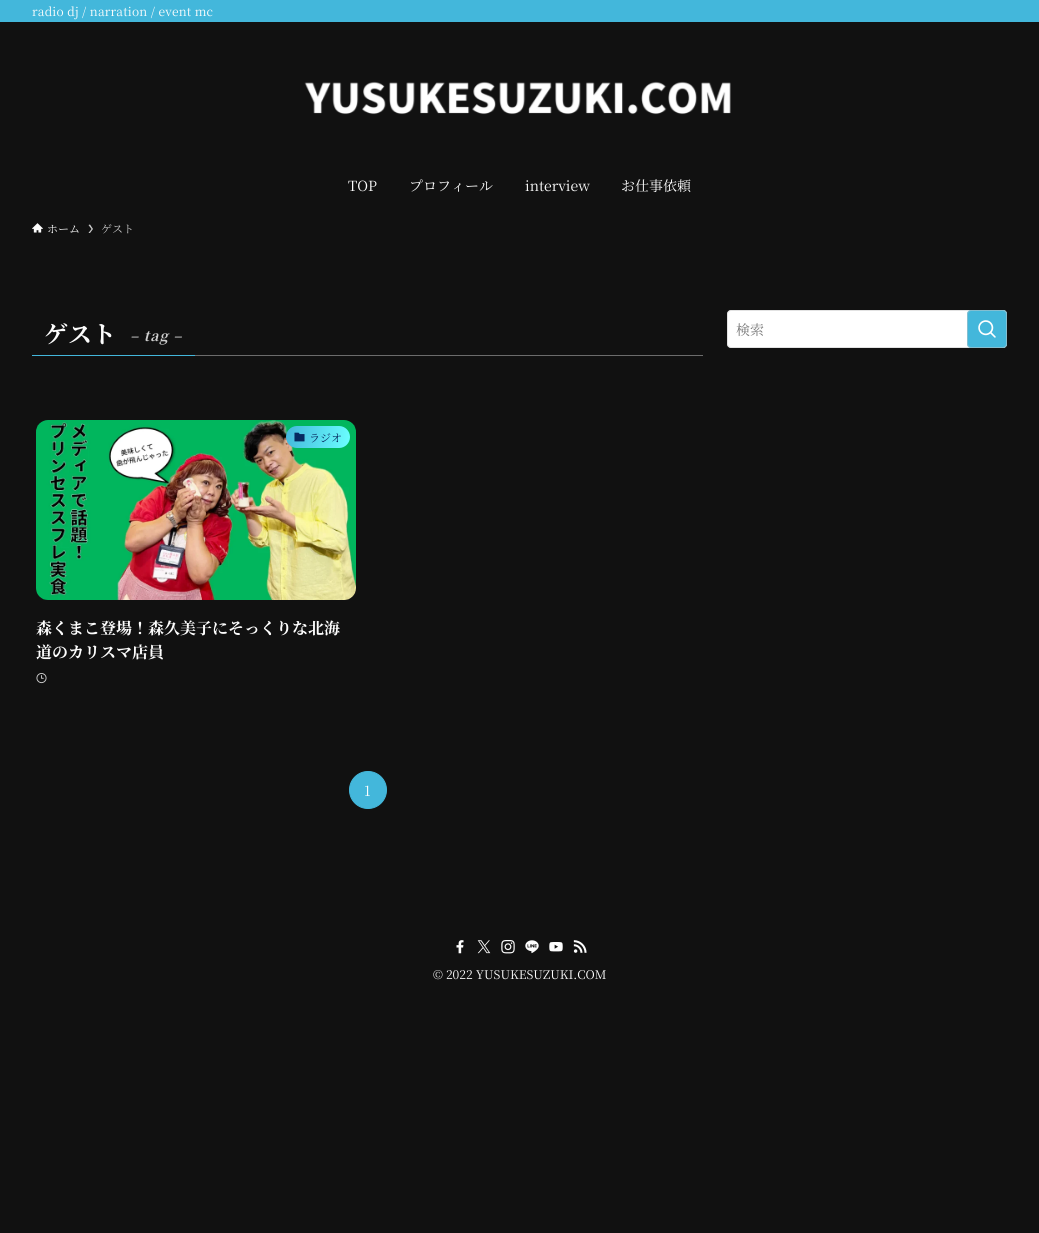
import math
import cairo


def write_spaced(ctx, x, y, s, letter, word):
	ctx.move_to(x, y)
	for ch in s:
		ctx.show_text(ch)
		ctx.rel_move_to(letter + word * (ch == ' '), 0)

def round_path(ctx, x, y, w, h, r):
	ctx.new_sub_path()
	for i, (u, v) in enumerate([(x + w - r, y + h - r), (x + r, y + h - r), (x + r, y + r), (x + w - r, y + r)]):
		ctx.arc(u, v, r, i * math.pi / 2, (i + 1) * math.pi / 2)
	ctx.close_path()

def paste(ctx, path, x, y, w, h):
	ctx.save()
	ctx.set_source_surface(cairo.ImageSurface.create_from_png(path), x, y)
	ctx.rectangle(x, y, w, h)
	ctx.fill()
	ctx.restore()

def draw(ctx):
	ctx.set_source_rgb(0.067, 0.067, 0.067)
	ctx.paint()
	ctx.set_source_rgb(0.263, 0.718, 0.859)
	ctx.rectangle(0, 0, 1039, 22)
	ctx.fill()
	ctx.select_font_face('Noto Serif JP')
	ctx.set_font_size(12)
	ctx.set_source_rgb(0.992, 0.992, 0.992)
	write_spaced(ctx, 32, 16, 'radio dj / narration / event mc', 0.2, 0)
	paste(ctx, 'media/1.png', 304, 81, 427, 34)
	ctx.set_font_size(14)
	for x, y, s in [
		(348, 191, 'TOP'),
		(409, 191, 'プロフィール'),
		(525, 191, 'interview'),
		(621, 191, 'お仕事依頼'),
	]:
		ctx.move_to(x, y)
		ctx.show_text(s)
	paste(ctx, 'media/2.png', 32, 223, 11, 10)
	ctx.set_font_size(11)
	ctx.move_to(47, 233)
	ctx.show_text('ホーム')
	ctx.set_source_rgb(0.808, 0.808, 0.808)
	ctx.new_path()
	ctx.move_to(90, 224.5)
	ctx.line_to(88.5, 225)
	ctx.line_to(91.5, 229)
	ctx.line_to(88.5, 233)
	ctx.line_to(90, 233)
	ctx.line_to(93, 229)
	ctx.close_path()
	ctx.fill()
	ctx.move_to(101, 233)
	ctx.show_text('ゲスト')
	ctx.set_source_rgb(0.424, 0.424, 0.424)
	ctx.rectangle(195, 355, 508, 1)
	ctx.fill()
	ctx.set_source_rgb(0.263, 0.718, 0.859)
	ctx.rectangle(32, 355, 163, 1)
	ctx.fill()
	ctx.select_font_face('Noto Serif JP', cairo.FONT_SLANT_NORMAL, cairo.FONT_WEIGHT_BOLD)
	ctx.set_font_size(24)
	ctx.set_source_rgb(0.992, 0.992, 0.992)
	ctx.move_to(44, 343)
	ctx.show_text('ゲスト')
	ctx.select_font_face('Noto Serif JP', cairo.FONT_SLANT_ITALIC, cairo.FONT_WEIGHT_BOLD)
	ctx.set_font_size(14)
	ctx.set_source_rgb(0.808, 0.808, 0.808)
	write_spaced(ctx, 130, 341, '– tag –', 1, 0)
	paste(ctx, 'media/3.png', 36, 420, 320, 180)
	gradient = cairo.LinearGradient(285, 431, 351, 443)
	gradient.add_color_stop_rgba(0, 0.263, 0.718, 0.859, 1)
	gradient.add_color_stop_rgba(1, 0.42, 1, 1, 1)
	ctx.set_source(gradient)
	round_path(ctx, 286, 426, 64, 22, 11)
	ctx.fill()
	paste(ctx, 'media/4.png', 294, 432, 11, 10)
	ctx.select_font_face('Noto Serif JP')
	ctx.set_font_size(11)
	ctx.set_source_rgb(0.024, 0.165, 0.376)
	ctx.move_to(309, 442)
	ctx.show_text('ラジオ')
	ctx.select_font_face('Noto Serif JP', cairo.FONT_SLANT_NORMAL, cairo.FONT_WEIGHT_BOLD)
	ctx.set_font_size(16)
	ctx.set_source_rgb(0.992, 0.992, 0.992)
	ctx.move_to(36, 634)
	ctx.show_text('森くまこ登場！森久美子にそっくりな北海')
	ctx.move_to(36, 658)
	ctx.show_text('道のカリスマ店員')
	paste(ctx, 'media/5.png', 36, 673, 11, 11)
	ctx.set_source_rgb(0.263, 0.718, 0.859)
	ctx.arc(368, 790, 18.5, 0, 2 * math.pi)
	ctx.fill_preserve()
	ctx.set_line_width(1)
	ctx.stroke()
	ctx.select_font_face('Noto Serif JP')
	ctx.set_font_size(14)
	ctx.set_source_rgb(0.992, 0.992, 0.992)
	ctx.move_to(364, 796)
	ctx.show_text('1')
	ctx.set_source_rgb(1, 1, 1)
	round_path(ctx, 727, 310, 280, 38, 4)
	ctx.fill()
	round_path(ctx, 727.5, 310.5, 279, 37, 3.5)
	ctx.set_source_rgba(0.78, 0.78, 0.78, 0.5)
	ctx.stroke()
	ctx.set_source_rgb(0.459, 0.459, 0.459)
	ctx.move_to(736, 335)
	ctx.show_text('検索')
	ctx.set_source_rgb(0.263, 0.718, 0.859)
	round_path(ctx, 967, 310, 40, 38, 4)
	ctx.fill()
	round_path(ctx, 967.5, 310.5, 39, 37, 3.5)
	ctx.set_source_rgba(0.78, 0.78, 0.78, 0.5)
	ctx.stroke()
	paste(ctx, 'media/6.png', 978, 320, 18, 18)
	paste(ctx, 'media/7.png', 456, 940, 8, 14)
	paste(ctx, 'media/8.png', 477, 940, 14, 14)
	paste(ctx, 'media/9.png', 501, 940, 14, 14)
	paste(ctx, 'media/10.png', 525, 940, 14, 14)
	paste(ctx, 'media/11.png', 549, 942, 14, 10)
	paste(ctx, 'media/12.png', 573, 940, 14, 13)
	ctx.set_font_size(12)
	ctx.set_source_rgb(0.992, 0.992, 0.992)
	ctx.move_to(433, 979)
	ctx.show_text('© 2022 YUSUKESUZUKI.COM')


surface = cairo.ImageSurface(cairo.FORMAT_RGB24, 1039, 1233)
ctx = cairo.Context(surface)
options = cairo.FontOptions()
options.set_hint_metrics(cairo.HINT_METRICS_OFF)
options.set_hint_style(cairo.HINT_STYLE_NONE)
ctx.set_font_options(options)
ctx.set_miter_limit(4)
draw(ctx)
surface.write_to_png('image.png')
